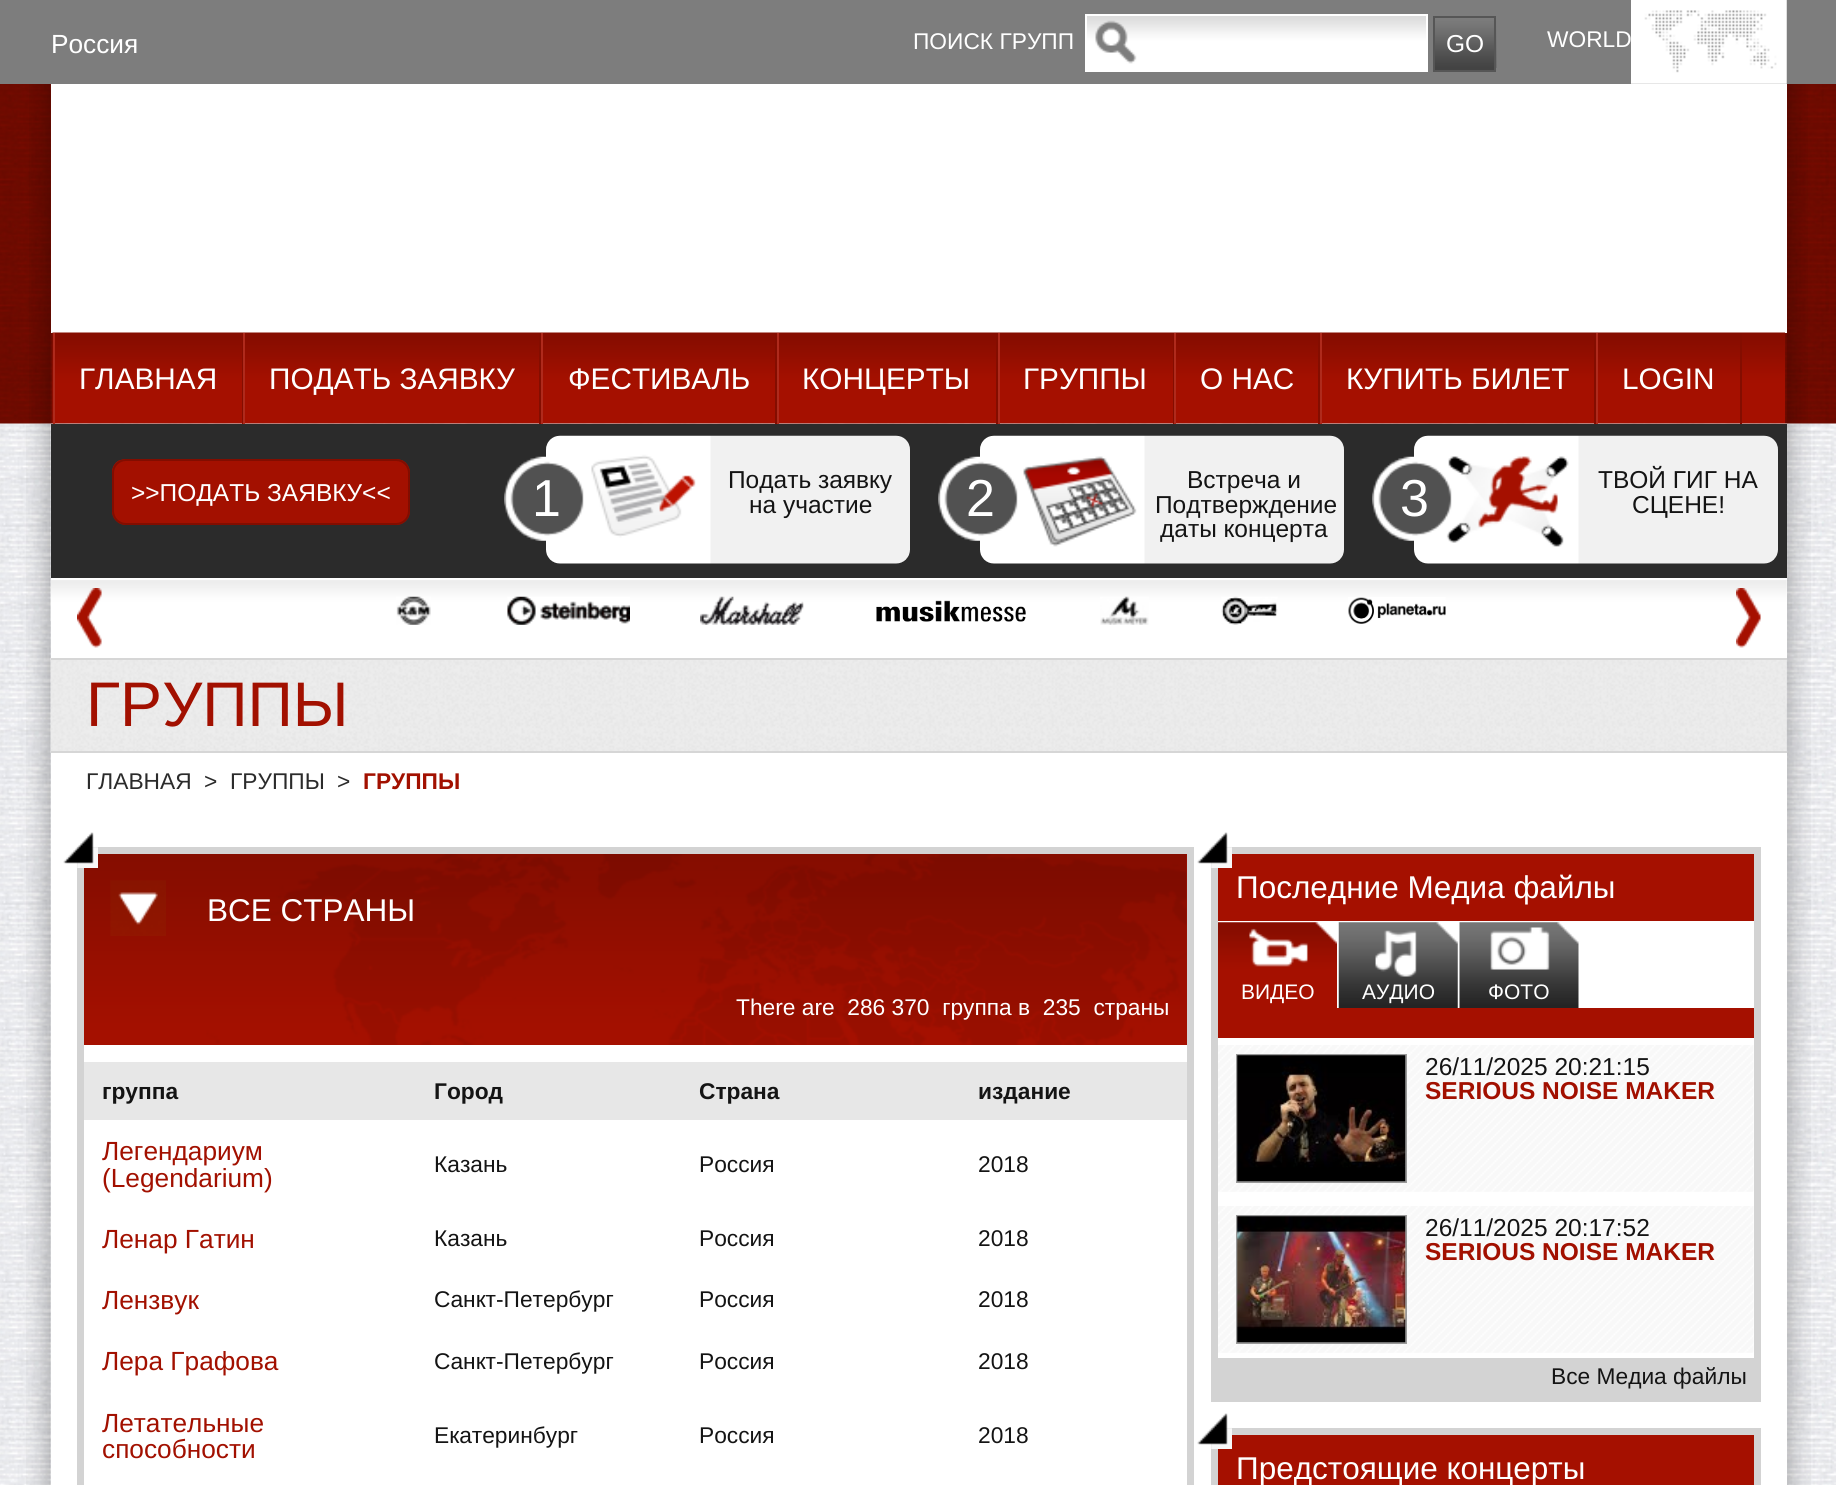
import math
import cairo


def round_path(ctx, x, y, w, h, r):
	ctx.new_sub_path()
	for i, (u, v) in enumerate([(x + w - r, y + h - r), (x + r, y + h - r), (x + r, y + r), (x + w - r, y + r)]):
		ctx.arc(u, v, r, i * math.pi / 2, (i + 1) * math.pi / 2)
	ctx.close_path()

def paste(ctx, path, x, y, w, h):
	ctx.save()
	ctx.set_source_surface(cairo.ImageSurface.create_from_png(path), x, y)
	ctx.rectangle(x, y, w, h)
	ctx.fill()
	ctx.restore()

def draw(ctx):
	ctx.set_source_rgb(1, 1, 1)
	ctx.paint()
	paste(ctx, 'media/1.png', 0, 84, 1836, 340)
	ctx.set_source_rgb(0.49, 0.49, 0.49)
	ctx.rectangle(0, 0, 1836, 84)
	ctx.fill()
	ctx.select_font_face('Liberation Sans')
	ctx.set_font_size(26.25)
	ctx.set_source_rgb(1, 1, 1)
	ctx.move_to(51, 53)
	ctx.show_text('Россия')
	ctx.set_font_size(22.75)
	ctx.move_to(913, 49)
	ctx.show_text('ПОИСК ГРУПП')
	ctx.rectangle(1087, 64, 339, 6)
	ctx.fill()
	paste(ctx, 'media/2.png', 1087, 16, 339, 48)
	ctx.rectangle(1086, 15, 341, 56)
	ctx.stroke()
	ctx.set_source_rgb(0.263, 0.263, 0.263)
	ctx.rectangle(1435, 68, 59, 2)
	ctx.fill()
	paste(ctx, 'media/3.png', 1435, 17, 62, 51)
	ctx.rectangle(1434, 17, 61, 54)
	ctx.set_source_rgb(0.337, 0.337, 0.337)
	ctx.stroke()
	ctx.set_font_size(24.5)
	ctx.set_source_rgb(1, 1, 1)
	ctx.move_to(1446, 52)
	ctx.show_text('GO')
	ctx.set_font_size(22.75)
	ctx.move_to(1547, 47)
	ctx.show_text('WORLD')
	paste(ctx, 'media/4.png', 1631, 0, 156, 84)
	paste(ctx, 'media/5.png', 29, 84, 1779, 340)
	ctx.rectangle(51, 84, 1736, 249)
	ctx.fill()
	paste(ctx, 'media/6.png', 52, 332, 1733, 92)
	paste(ctx, 'media/7.png', 0, 423, 1836, 1062)
	paste(ctx, 'media/8.png', 26, 423, 1785, 1062)
	ctx.set_source_rgb(0.518, 0.051, 0)
	ctx.rectangle(242, 333, 1, 91)
	ctx.fill()
	ctx.set_source_rgb(0.686, 0.165, 0.11)
	ctx.rectangle(53, 333, 2, 91)
	ctx.fill()
	ctx.set_font_size(29.75)
	ctx.set_source_rgb(1, 1, 1)
	ctx.move_to(79, 389)
	ctx.show_text('ГЛАВНАЯ')
	ctx.set_source_rgb(0.518, 0.051, 0)
	ctx.rectangle(539, 333, 2, 91)
	ctx.fill()
	ctx.set_source_rgb(0.686, 0.165, 0.11)
	ctx.rectangle(243, 333, 2, 91)
	ctx.fill()
	ctx.set_source_rgb(1, 1, 1)
	ctx.move_to(269, 389)
	ctx.show_text('ПОДАТЬ ЗАЯВКУ')
	ctx.set_source_rgb(0.518, 0.051, 0)
	ctx.rectangle(775, 333, 2, 91)
	ctx.fill()
	ctx.set_source_rgb(0.686, 0.165, 0.11)
	ctx.rectangle(541, 333, 2, 91)
	ctx.fill()
	ctx.set_source_rgb(1, 1, 1)
	ctx.move_to(568, 389)
	ctx.show_text('ФЕСТИВАЛЬ')
	ctx.set_source_rgb(0.518, 0.051, 0)
	ctx.rectangle(996, 333, 2, 91)
	ctx.fill()
	ctx.set_source_rgb(0.686, 0.165, 0.11)
	ctx.rectangle(777, 333, 2, 91)
	ctx.fill()
	ctx.set_source_rgb(1, 1, 1)
	ctx.move_to(802, 389)
	ctx.show_text('КОНЦЕРТЫ')
	ctx.set_source_rgb(0.518, 0.051, 0)
	ctx.rectangle(1173, 333, 1, 91)
	ctx.fill()
	ctx.set_source_rgb(0.686, 0.165, 0.11)
	ctx.rectangle(998, 333, 2, 91)
	ctx.fill()
	ctx.set_source_rgb(1, 1, 1)
	ctx.move_to(1023, 389)
	ctx.show_text('ГРУППЫ')
	ctx.set_source_rgb(0.518, 0.051, 0)
	ctx.rectangle(1318, 333, 2, 91)
	ctx.fill()
	ctx.set_source_rgb(0.686, 0.165, 0.11)
	ctx.rectangle(1174, 333, 2, 91)
	ctx.fill()
	ctx.set_source_rgb(1, 1, 1)
	ctx.move_to(1200, 389)
	ctx.show_text('О НАС')
	ctx.set_source_rgb(0.518, 0.051, 0)
	ctx.rectangle(1594, 333, 2, 91)
	ctx.fill()
	ctx.set_source_rgb(0.686, 0.165, 0.11)
	ctx.rectangle(1320, 333, 2, 91)
	ctx.fill()
	ctx.set_source_rgb(1, 1, 1)
	ctx.move_to(1346, 389)
	ctx.show_text('КУПИТЬ БИЛЕТ')
	ctx.set_source_rgb(0.518, 0.051, 0)
	ctx.rectangle(1740, 333, 2, 91)
	ctx.fill()
	ctx.set_source_rgb(0.686, 0.165, 0.11)
	ctx.rectangle(1596, 333, 2, 91)
	ctx.fill()
	ctx.set_source_rgb(1, 1, 1)
	ctx.move_to(1622, 389)
	ctx.show_text('LOGIN')
	ctx.set_source_rgb(0.169, 0.169, 0.169)
	ctx.rectangle(51, 424, 1736, 154)
	ctx.fill()
	ctx.set_source_rgb(0.639, 0.063, 0)
	round_path(ctx, 112, 459, 298, 66, 14)
	ctx.fill()
	paste(ctx, 'media/9.png', 112, 460, 298, 13)
	round_path(ctx, 113, 460, 296, 64, 13)
	ctx.set_source_rgb(0.51, 0.051, 0)
	ctx.stroke()
	ctx.set_font_size(24.5)
	ctx.set_source_rgb(1, 1, 1)
	ctx.move_to(131, 501)
	ctx.show_text('>>ПОДАТЬ ЗАЯВКУ<<')
	paste(ctx, 'media/10.png', 546, 435, 364, 129)
	paste(ctx, 'media/11.png', 504, 456, 80, 85)
	ctx.set_font_size(52)
	ctx.move_to(532, 516)
	ctx.show_text('1')
	ctx.set_font_size(24.5)
	ctx.set_source_rgb(0.082, 0.082, 0.082)
	ctx.move_to(728, 488)
	ctx.show_text('Подать заявку')
	ctx.move_to(749, 513)
	ctx.show_text('на участие')
	paste(ctx, 'media/12.png', 980, 435, 364, 129)
	paste(ctx, 'media/13.png', 938, 456, 80, 85)
	ctx.set_font_size(52)
	ctx.set_source_rgb(1, 1, 1)
	ctx.move_to(966, 516)
	ctx.show_text('2')
	ctx.set_font_size(24.5)
	ctx.set_source_rgb(0.082, 0.082, 0.082)
	for x, y, s in [
		(1187, 488, 'Встреча и'),
		(1155, 513, 'Подтверждение'),
		(1160, 537, 'даты концерта'),
	]:
		ctx.move_to(x, y)
		ctx.show_text(s)
	paste(ctx, 'media/14.png', 1414, 435, 364, 129)
	paste(ctx, 'media/15.png', 1372, 456, 80, 85)
	ctx.set_font_size(52)
	ctx.set_source_rgb(1, 1, 1)
	ctx.move_to(1400, 516)
	ctx.show_text('3')
	ctx.set_font_size(24.5)
	ctx.set_source_rgb(0.082, 0.082, 0.082)
	ctx.move_to(1598, 488)
	ctx.show_text('ТВОЙ ГИГ НА')
	ctx.move_to(1632, 513)
	ctx.show_text('СЦЕНЕ!')
	ctx.set_source_rgb(1, 1, 1)
	ctx.rectangle(51, 580, 1736, 78)
	ctx.fill()
	paste(ctx, 'media/16.png', 50, 579, 1737, 42)
	ctx.rectangle(51, 578, 1736, 2)
	ctx.fill()
	paste(ctx, 'media/17.png', 77, 588, 25, 60)
	paste(ctx, 'media/18.png', 396, 596, 35, 29)
	paste(ctx, 'media/19.png', 507, 596, 123, 29)
	paste(ctx, 'media/20.png', 700, 596, 104, 29)
	paste(ctx, 'media/21.png', 876, 600, 150, 22)
	paste(ctx, 'media/22.png', 1100, 596, 49, 29)
	paste(ctx, 'media/23.png', 1221, 596, 57, 29)
	paste(ctx, 'media/24.png', 1348, 597, 98, 27)
	paste(ctx, 'media/25.png', 1736, 588, 25, 60)
	paste(ctx, 'media/26.png', 50, 658, 1737, 95)
	ctx.set_source_rgb(0.839, 0.839, 0.839)
	ctx.rectangle(51, 658, 1736, 2)
	ctx.fill()
	ctx.rectangle(51, 751, 1736, 2)
	ctx.fill()
	ctx.set_font_size(63)
	ctx.set_source_rgb(0.635, 0.063, 0)
	ctx.move_to(86, 726)
	ctx.show_text('ГРУППЫ')
	ctx.set_source_rgb(1, 1, 1)
	ctx.rectangle(51, 753, 1736, 732)
	ctx.fill()
	ctx.set_font_size(22.75)
	ctx.set_source_rgb(0.169, 0.169, 0.169)
	for x, y, s in [
		(86, 789, 'ГЛАВНАЯ'),
		(204, 789, '>'),
		(230, 789, 'ГРУППЫ'),
		(337, 789, '>'),
	]:
		ctx.move_to(x, y)
		ctx.show_text(s)
	ctx.select_font_face('Liberation Sans', cairo.FONT_SLANT_NORMAL, cairo.FONT_WEIGHT_BOLD)
	ctx.set_source_rgb(0.635, 0.063, 0)
	ctx.move_to(363, 789)
	ctx.show_text('ГРУППЫ')
	ctx.rectangle(80.5, 850.5, 1110, 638)
	ctx.set_source_rgb(0.827, 0.827, 0.827)
	ctx.set_line_width(7)
	ctx.stroke()
	ctx.set_source_rgb(0.647, 0.063, 0)
	ctx.rectangle(84, 854, 1103, 191)
	ctx.fill()
	paste(ctx, 'media/28.png', 84, 854, 1103, 191)
	paste(ctx, 'media/27.png', 63, 832, 35, 36)
	paste(ctx, 'media/29.png', 110, 880, 56, 56)
	ctx.select_font_face('Liberation Sans')
	ctx.set_font_size(31.5)
	ctx.set_source_rgb(1, 1, 1)
	ctx.move_to(207, 921)
	ctx.show_text('ВСЕ СТРАНЫ')
	ctx.set_font_size(22.75)
	ctx.move_to(736, 1015)
	ctx.show_text('There are  286 370  группа в  235  страны')
	ctx.set_source_rgb(0.906, 0.906, 0.906)
	ctx.rectangle(84, 1062, 1103, 58)
	ctx.fill()
	ctx.select_font_face('Liberation Sans', cairo.FONT_SLANT_NORMAL, cairo.FONT_WEIGHT_BOLD)
	ctx.set_source_rgb(0.082, 0.082, 0.082)
	for x, y, s in [
		(102, 1099, 'группа'),
		(434, 1099, 'Город'),
		(699, 1099, 'Страна'),
		(978, 1099, 'издание'),
	]:
		ctx.move_to(x, y)
		ctx.show_text(s)
	ctx.select_font_face('Liberation Sans')
	ctx.set_font_size(26.25)
	ctx.set_source_rgb(0.635, 0.063, 0)
	ctx.move_to(102, 1160)
	ctx.show_text('Легендариум')
	ctx.move_to(102, 1187)
	ctx.show_text('(Legendarium)')
	ctx.set_font_size(22.75)
	ctx.set_source_rgb(0.082, 0.082, 0.082)
	for x, y, s in [
		(434, 1172, 'Казань'),
		(699, 1172, 'Россия'),
		(978, 1172, '2018'),
	]:
		ctx.move_to(x, y)
		ctx.show_text(s)
	ctx.set_font_size(26.25)
	ctx.set_source_rgb(0.635, 0.063, 0)
	ctx.move_to(102, 1248)
	ctx.show_text('Ленар Гатин')
	ctx.set_font_size(22.75)
	ctx.set_source_rgb(0.082, 0.082, 0.082)
	for x, y, s in [
		(434, 1246, 'Казань'),
		(699, 1246, 'Россия'),
		(978, 1246, '2018'),
	]:
		ctx.move_to(x, y)
		ctx.show_text(s)
	ctx.set_font_size(26.25)
	ctx.set_source_rgb(0.635, 0.063, 0)
	ctx.move_to(102, 1309)
	ctx.show_text('Лензвук')
	ctx.set_font_size(22.75)
	ctx.set_source_rgb(0.082, 0.082, 0.082)
	for x, y, s in [
		(434, 1307, 'Санкт-Петербург'),
		(699, 1307, 'Россия'),
		(978, 1307, '2018'),
	]:
		ctx.move_to(x, y)
		ctx.show_text(s)
	ctx.set_font_size(26.25)
	ctx.set_source_rgb(0.635, 0.063, 0)
	ctx.move_to(102, 1370)
	ctx.show_text('Лера Графова')
	ctx.set_font_size(22.75)
	ctx.set_source_rgb(0.082, 0.082, 0.082)
	for x, y, s in [
		(434, 1369, 'Санкт-Петербург'),
		(699, 1369, 'Россия'),
		(978, 1369, '2018'),
	]:
		ctx.move_to(x, y)
		ctx.show_text(s)
	ctx.set_font_size(26.25)
	ctx.set_source_rgb(0.635, 0.063, 0)
	ctx.move_to(102, 1432)
	ctx.show_text('Летательные')
	ctx.move_to(102, 1458)
	ctx.show_text('способности')
	ctx.set_font_size(22.75)
	ctx.set_source_rgb(0.082, 0.082, 0.082)
	for x, y, s in [
		(434, 1443, 'Екатеринбург'),
		(699, 1443, 'Россия'),
		(978, 1443, '2018'),
	]:
		ctx.move_to(x, y)
		ctx.show_text(s)
	ctx.rectangle(1214.5, 850.5, 543, 548)
	ctx.set_source_rgb(0.827, 0.827, 0.827)
	ctx.stroke()
	ctx.set_source_rgb(0.647, 0.063, 0)
	ctx.rectangle(1218, 854, 536, 67)
	ctx.fill()
	paste(ctx, 'media/30.png', 1197, 832, 35, 36)
	ctx.set_font_size(31.5)
	ctx.set_source_rgb(1, 1, 1)
	ctx.move_to(1236, 898)
	ctx.show_text('Последние Медиа файлы')
	paste(ctx, 'media/31.png', 1218, 922, 119, 86)
	ctx.set_font_size(21)
	ctx.move_to(1241, 999)
	ctx.show_text('ВИДЕО')
	paste(ctx, 'media/32.png', 1338, 922, 120, 86)
	ctx.move_to(1362, 999)
	ctx.show_text('АУДИО')
	paste(ctx, 'media/33.png', 1459, 922, 120, 86)
	ctx.move_to(1488, 999)
	ctx.show_text('ФОТО')
	ctx.set_source_rgb(0.647, 0.063, 0)
	ctx.rectangle(1218, 1008, 536, 30)
	ctx.fill()
	paste(ctx, 'media/34.png', 1218, 1045, 536, 147)
	ctx.rectangle(1237, 1055, 169, 127)
	ctx.set_source_rgb(0.6, 0.6, 0.6)
	ctx.set_line_width(2)
	ctx.stroke()
	paste(ctx, 'media/35.png', 1237, 1055, 169, 127)
	ctx.set_font_size(24.5)
	ctx.set_source_rgb(0.082, 0.082, 0.082)
	ctx.move_to(1425, 1075)
	ctx.show_text('26/11/2025 20:21:15')
	ctx.select_font_face('Liberation Sans', cairo.FONT_SLANT_NORMAL, cairo.FONT_WEIGHT_BOLD)
	ctx.set_source_rgb(0.635, 0.063, 0)
	ctx.move_to(1425, 1099)
	ctx.show_text('SERIOUS NOISE MAKER')
	paste(ctx, 'media/34.png', 1218, 1206, 536, 147)
	ctx.rectangle(1237, 1216, 169, 127)
	ctx.set_source_rgb(0.6, 0.6, 0.6)
	ctx.stroke()
	paste(ctx, 'media/36.png', 1237, 1216, 169, 127)
	ctx.select_font_face('Liberation Sans')
	ctx.set_source_rgb(0.082, 0.082, 0.082)
	ctx.move_to(1425, 1236)
	ctx.show_text('26/11/2025 20:17:52')
	ctx.select_font_face('Liberation Sans', cairo.FONT_SLANT_NORMAL, cairo.FONT_WEIGHT_BOLD)
	ctx.set_source_rgb(0.635, 0.063, 0)
	ctx.move_to(1425, 1260)
	ctx.show_text('SERIOUS NOISE MAKER')
	ctx.set_source_rgb(0.827, 0.827, 0.827)
	ctx.rectangle(1218, 1358, 536, 37)
	ctx.fill()
	ctx.select_font_face('Liberation Sans')
	ctx.set_font_size(22.75)
	ctx.set_source_rgb(0.082, 0.082, 0.082)
	ctx.move_to(1551, 1384)
	ctx.show_text('Все Медиа файлы')
	ctx.rectangle(1214.5, 1431.5, 543, 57)
	ctx.set_source_rgb(0.827, 0.827, 0.827)
	ctx.set_line_width(7)
	ctx.stroke()
	ctx.set_source_rgb(0.647, 0.063, 0)
	ctx.rectangle(1218, 1435, 536, 50)
	ctx.fill()
	paste(ctx, 'media/30.png', 1197, 1413, 35, 36)
	ctx.set_font_size(31.5)
	ctx.set_source_rgb(1, 1, 1)
	ctx.move_to(1236, 1479)
	ctx.show_text('Предстоящие концерты')


surface = cairo.ImageSurface(cairo.FORMAT_RGB24, 1836, 1485)
ctx = cairo.Context(surface)
options = cairo.FontOptions()
options.set_hint_metrics(cairo.HINT_METRICS_OFF)
options.set_hint_style(cairo.HINT_STYLE_NONE)
ctx.set_font_options(options)
ctx.set_miter_limit(4)
draw(ctx)
surface.write_to_png('image.png')
